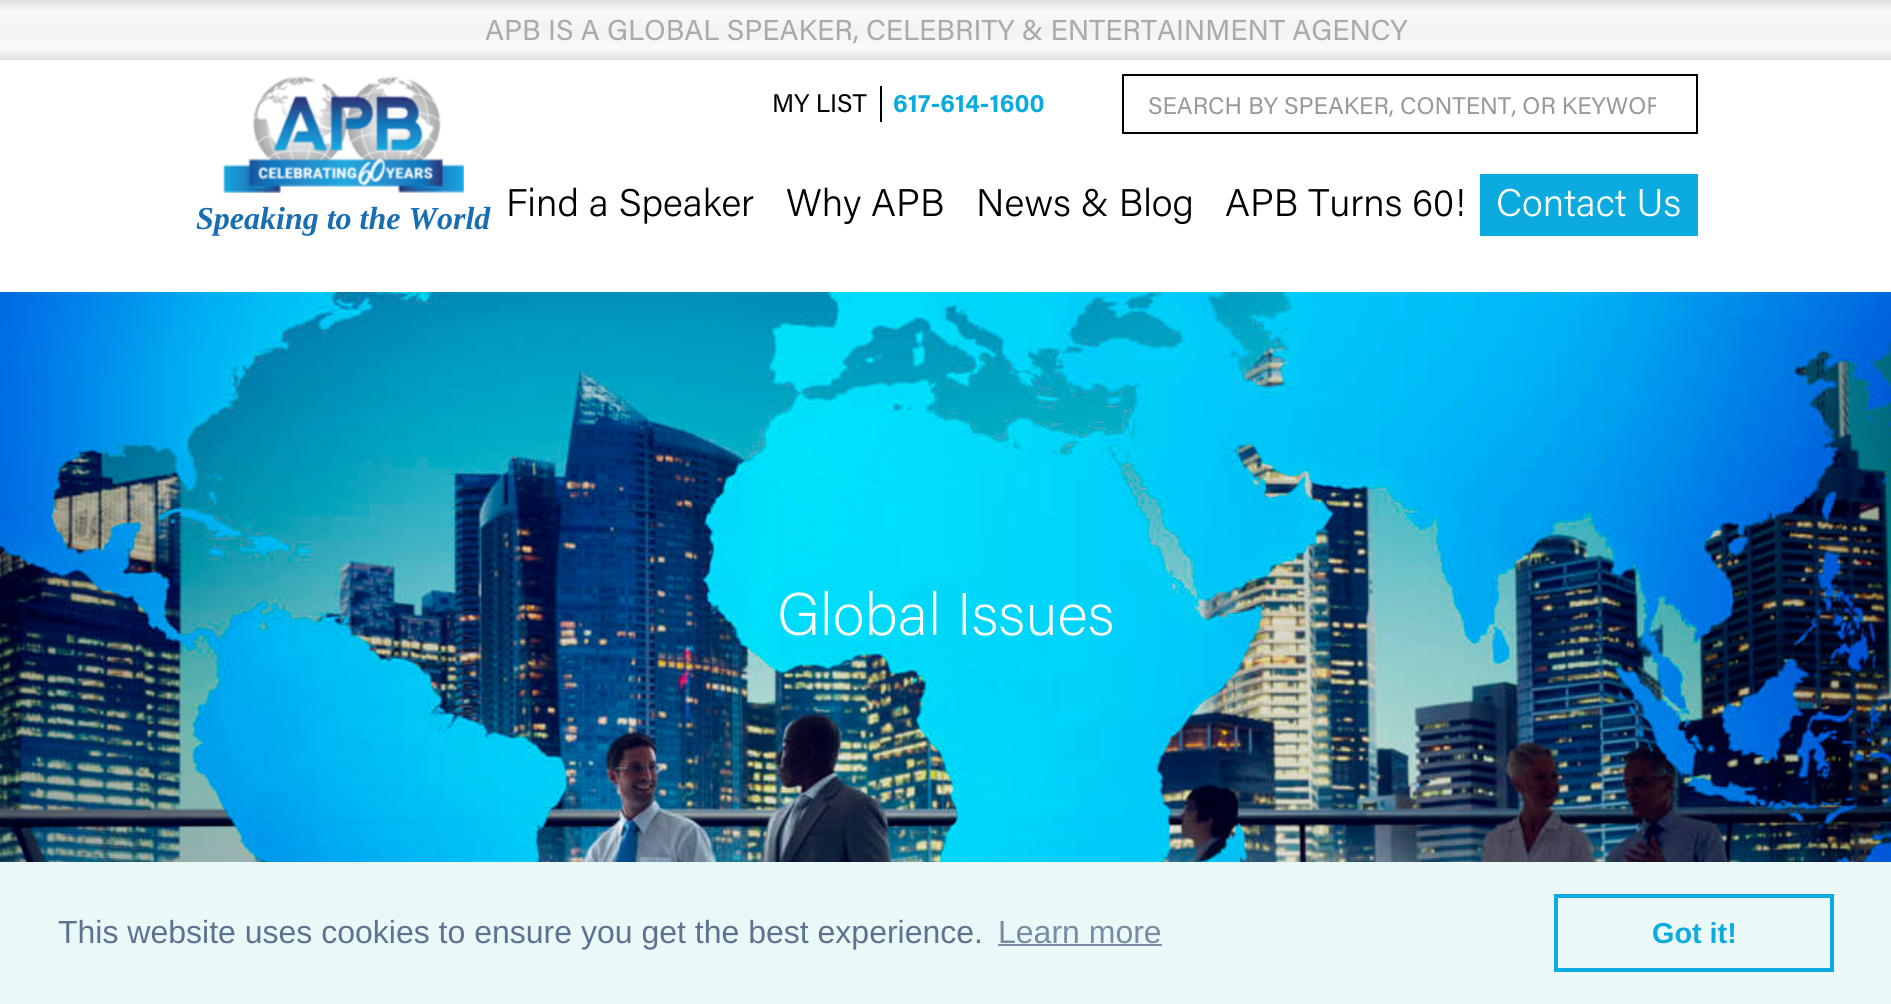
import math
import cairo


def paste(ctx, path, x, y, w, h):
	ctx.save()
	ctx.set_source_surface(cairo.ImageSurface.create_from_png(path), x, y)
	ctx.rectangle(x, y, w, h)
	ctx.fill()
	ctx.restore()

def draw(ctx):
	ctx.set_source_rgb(1, 1, 1)
	ctx.paint()
	gradient = cairo.LinearGradient(946, 0, 946, 60)
	gradient.add_color_stop_rgba(0, 0.878, 0.878, 0.878, 1)
	gradient.add_color_stop_rgba(0.2, 0.98, 0.98, 0.98, 1)
	gradient.add_color_stop_rgba(0.5, 0.949, 0.949, 0.949, 1)
	gradient.add_color_stop_rgba(0.8, 0.98, 0.98, 0.98, 1)
	gradient.add_color_stop_rgba(1, 0.878, 0.878, 0.878, 1)
	ctx.set_source(gradient)
	ctx.rectangle(0, 0, 1891, 60)
	ctx.fill()
	ctx.select_font_face('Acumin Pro')
	ctx.set_font_size(28.8)
	ctx.set_source_rgb(0.667, 0.667, 0.667)
	ctx.move_to(485, 40)
	ctx.show_text('APB IS A GLOBAL SPEAKER, CELEBRITY & ENTERTAINMENT AGENCY')
	paste(ctx, 'media/1.png', 223, 76, 241, 117)
	ctx.select_font_face('Liberation Serif', cairo.FONT_SLANT_ITALIC, cairo.FONT_WEIGHT_BOLD)
	ctx.set_font_size(32)
	ctx.set_source_rgb(0.094, 0.431, 0.698)
	ctx.move_to(196, 229)
	ctx.show_text('Speaking to the World')
	ctx.set_source_rgb(0, 0, 0)
	ctx.rectangle(880, 86, 2, 36)
	ctx.fill()
	ctx.select_font_face('Acumin Pro')
	ctx.set_font_size(25.5)
	ctx.move_to(772, 112)
	ctx.show_text('MY LIST')
	ctx.select_font_face('Acumin Pro', cairo.FONT_SLANT_NORMAL, cairo.FONT_WEIGHT_BOLD)
	ctx.set_source_rgb(0.043, 0.671, 0.878)
	ctx.move_to(893, 112)
	ctx.show_text('617-614-1600')
	ctx.rectangle(1123, 75, 574, 58)
	ctx.set_source_rgb(0, 0, 0)
	ctx.stroke()
	ctx.save()
	ctx.rectangle(1148, 86, 508, 36)
	ctx.clip()
	ctx.select_font_face('Acumin Pro')
	ctx.set_font_size(24)
	ctx.set_source_rgb(0.6, 0.6, 0.6)
	ctx.move_to(1148, 114)
	ctx.show_text('SEARCH BY SPEAKER, CONTENT, OR KEYWOR')
	ctx.restore()
	ctx.select_font_face('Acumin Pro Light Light')
	ctx.set_font_size(38.5)
	for x, y, s in [
		(506, 216, 'Find a Speaker'),
		(786, 216, 'Why APB'),
		(976, 216, 'News & Blog'),
		(1225, 216, 'APB Turns 60!'),
	]:
		ctx.move_to(x, y)
		ctx.show_text(s)
	ctx.set_source_rgb(0.043, 0.671, 0.878)
	ctx.rectangle(1480, 174, 218, 62)
	ctx.fill()
	ctx.set_source_rgb(1, 1, 1)
	ctx.move_to(1496, 216)
	ctx.show_text('Contact Us')
	paste(ctx, 'media/2.png', 0, 292, 1891, 570)
	ctx.select_font_face('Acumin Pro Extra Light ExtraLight')
	ctx.set_font_size(60)
	ctx.move_to(777, 635)
	ctx.show_text('Global Issues')
	ctx.set_source_rgb(0.918, 0.969, 0.969)
	ctx.rectangle(0, 862, 1891, 142)
	ctx.fill()
	ctx.select_font_face('Liberation Sans')
	ctx.set_font_size(32)
	ctx.set_source_rgb(0.361, 0.447, 0.569)
	ctx.move_to(58, 943)
	ctx.show_text('This website uses cookies to ensure you get the best experience.')
	ctx.set_source_rgb(0.471, 0.553, 0.647)
	ctx.move_to(998, 943)
	ctx.show_text('Learn more')
	ctx.rectangle(998, 944, 164, 2)
	ctx.fill()
	ctx.rectangle(1556, 896, 276, 74)
	ctx.set_source_rgb(0.043, 0.671, 0.878)
	ctx.set_line_width(4)
	ctx.stroke()
	ctx.select_font_face('Liberation Sans', cairo.FONT_SLANT_NORMAL, cairo.FONT_WEIGHT_BOLD)
	ctx.set_font_size(28.8)
	ctx.move_to(1652, 943)
	ctx.show_text('Got it!')


surface = cairo.ImageSurface(cairo.FORMAT_RGB24, 1891, 1004)
ctx = cairo.Context(surface)
options = cairo.FontOptions()
options.set_hint_metrics(cairo.HINT_METRICS_OFF)
options.set_hint_style(cairo.HINT_STYLE_NONE)
ctx.set_font_options(options)
ctx.set_miter_limit(4)
draw(ctx)
surface.write_to_png('image.png')
